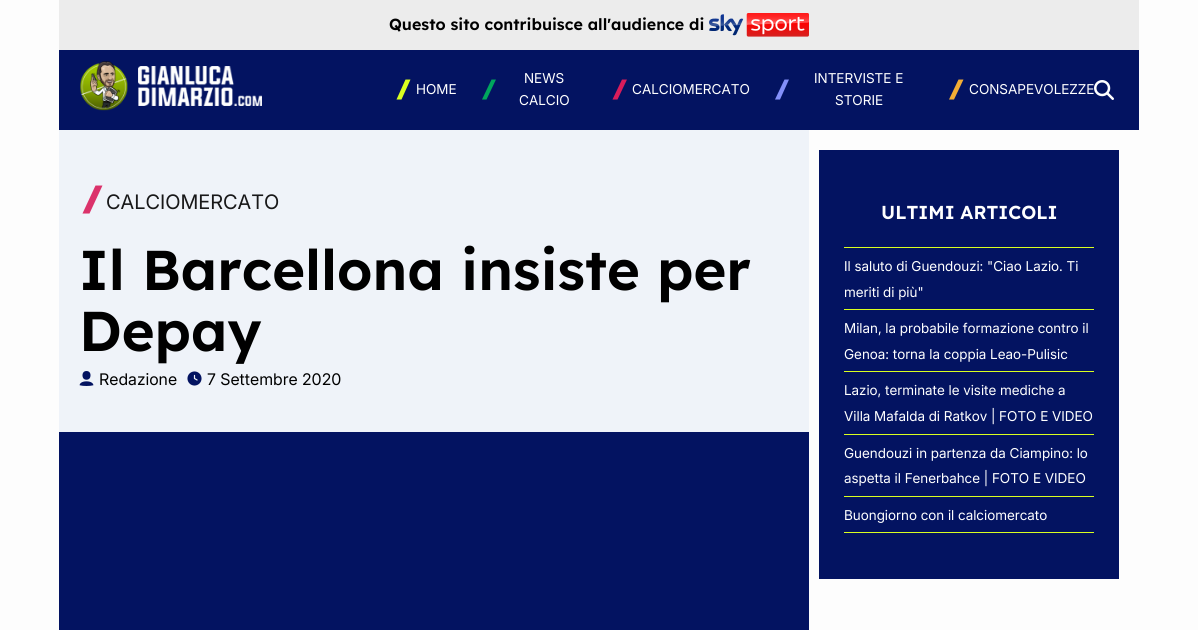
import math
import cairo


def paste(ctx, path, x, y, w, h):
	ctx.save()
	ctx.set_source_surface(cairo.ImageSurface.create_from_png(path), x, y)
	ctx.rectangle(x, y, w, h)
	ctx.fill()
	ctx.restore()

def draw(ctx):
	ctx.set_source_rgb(0.992, 0.992, 0.992)
	ctx.paint()
	ctx.set_source_rgb(0.922, 0.922, 0.922)
	ctx.rectangle(59, 0, 1080, 50)
	ctx.fill()
	ctx.select_font_face('Lexend SemiBold')
	ctx.set_font_size(16)
	ctx.set_source_rgb(0, 0, 0)
	ctx.move_to(389, 30)
	ctx.show_text('Questo sito contribuisce all\'audience di')
	paste(ctx, 'media/1.png', 709, 13, 100, 24)
	ctx.set_source_rgb(0.012, 0.075, 0.38)
	ctx.rectangle(59, 50, 1080, 80)
	ctx.fill()
	paste(ctx, 'media/2.png', 80, 61, 48, 50)
	paste(ctx, 'media/3.png', 138, 66, 124, 40)
	ctx.set_source_rgb(0.855, 1, 0.125)
	ctx.new_path()
	ctx.move_to(405.5, 79.5)
	ctx.line_to(410.5, 79.5)
	ctx.line_to(401.5, 99.5)
	ctx.line_to(396.5, 99.5)
	ctx.close_path()
	ctx.fill()
	ctx.select_font_face('Inter')
	ctx.set_font_size(13.6)
	ctx.set_source_rgb(1, 1, 1)
	ctx.move_to(416, 94)
	ctx.show_text('HOME')
	ctx.set_source_rgb(0, 0.647, 0.365)
	ctx.new_path()
	ctx.move_to(491.5, 79.5)
	ctx.line_to(496, 79.5)
	ctx.line_to(486.5, 99.5)
	ctx.line_to(482, 99.5)
	ctx.close_path()
	ctx.fill()
	ctx.set_source_rgb(1, 1, 1)
	ctx.move_to(524, 83)
	ctx.show_text('NEWS')
	ctx.move_to(519, 105)
	ctx.show_text('CALCIO')
	ctx.set_source_rgb(0.851, 0.11, 0.357)
	ctx.new_path()
	ctx.move_to(622, 79.5)
	ctx.line_to(627, 79.5)
	ctx.line_to(617.5, 99.5)
	ctx.line_to(612.5, 99.5)
	ctx.close_path()
	ctx.fill()
	ctx.set_source_rgb(1, 1, 1)
	ctx.move_to(632, 94)
	ctx.show_text('CALCIOMERCATO')
	ctx.set_source_rgb(0.514, 0.565, 0.98)
	ctx.new_path()
	ctx.move_to(784.5, 79.5)
	ctx.line_to(789, 79.5)
	ctx.line_to(780, 99.5)
	ctx.line_to(775, 99.5)
	ctx.close_path()
	ctx.fill()
	ctx.set_source_rgb(1, 1, 1)
	ctx.move_to(814, 83)
	ctx.show_text('INTERVISTE E')
	ctx.move_to(835, 105)
	ctx.show_text('STORIE')
	ctx.set_source_rgb(0.953, 0.678, 0.208)
	ctx.new_path()
	ctx.move_to(958.5, 79.5)
	ctx.line_to(963.5, 79.5)
	ctx.line_to(954, 99.5)
	ctx.line_to(949, 99.5)
	ctx.close_path()
	ctx.fill()
	ctx.set_source_rgb(1, 1, 1)
	ctx.move_to(969, 94)
	ctx.show_text('CONSAPEVOLEZZE')
	paste(ctx, 'media/4.png', 1094, 80, 20, 20)
	ctx.set_source_rgb(0.937, 0.953, 0.976)
	ctx.rectangle(59, 130, 750, 302)
	ctx.fill()
	ctx.set_source_rgb(0.859, 0.196, 0.42)
	ctx.new_path()
	ctx.move_to(95.5, 185.5)
	ctx.line_to(102.5, 185.5)
	ctx.line_to(89.5, 213.5)
	ctx.line_to(82.5, 213.5)
	ctx.close_path()
	ctx.fill()
	ctx.set_font_size(20)
	ctx.set_source_rgb(0.094, 0.094, 0.098)
	ctx.move_to(106, 209)
	ctx.show_text('CALCIOMERCATO')
	ctx.select_font_face('Lexend SemiBold')
	ctx.set_font_size(56)
	ctx.set_source_rgb(0, 0, 0)
	ctx.move_to(79, 290)
	ctx.show_text('Il Barcellona insiste per')
	ctx.move_to(79, 351)
	ctx.show_text('Depay')
	paste(ctx, 'media/5.png', 79, 371, 15, 15)
	ctx.select_font_face('Inter')
	ctx.set_font_size(16)
	ctx.move_to(99, 385)
	ctx.show_text('Redazione')
	paste(ctx, 'media/6.png', 187, 371, 15, 15)
	ctx.move_to(207, 385)
	ctx.show_text('7 Settembre 2020')
	ctx.set_source_rgb(0.012, 0.075, 0.38)
	ctx.rectangle(59, 432, 750, 198)
	ctx.fill()
	ctx.rectangle(819, 150, 300, 429)
	ctx.fill()
	ctx.select_font_face('Lexend SemiBold')
	ctx.set_font_size(18.75)
	ctx.set_source_rgb(1, 1, 1)
	ctx.move_to(881, 219)
	ctx.show_text('ULTIMI ARTICOLI')
	ctx.set_source_rgb(0.855, 1, 0.125)
	ctx.rectangle(844, 247, 250, 1)
	ctx.fill()
	ctx.rectangle(844, 309, 250, 1)
	ctx.fill()
	ctx.select_font_face('Inter')
	ctx.set_font_size(13.6)
	ctx.set_source_rgb(1, 1, 1)
	ctx.move_to(844, 271)
	ctx.show_text('Il saluto di Guendouzi: "Ciao Lazio. Ti')
	ctx.move_to(844, 297)
	ctx.show_text('meriti di più"')
	ctx.set_source_rgb(0.855, 1, 0.125)
	ctx.rectangle(844, 371, 250, 1)
	ctx.fill()
	ctx.set_source_rgb(1, 1, 1)
	ctx.move_to(844, 333)
	ctx.show_text('Milan, la probabile formazione contro il')
	ctx.move_to(844, 359)
	ctx.show_text('Genoa: torna la coppia Leao-Pulisic')
	ctx.set_source_rgb(0.855, 1, 0.125)
	ctx.rectangle(844, 434, 250, 1)
	ctx.fill()
	ctx.set_source_rgb(1, 1, 1)
	ctx.move_to(844, 395)
	ctx.show_text('Lazio, terminate le visite mediche a')
	ctx.move_to(844, 421)
	ctx.show_text('Villa Mafalda di Ratkov | FOTO E VIDEO')
	ctx.set_source_rgb(0.855, 1, 0.125)
	ctx.rectangle(844, 496, 250, 1)
	ctx.fill()
	ctx.set_source_rgb(1, 1, 1)
	ctx.move_to(844, 458)
	ctx.show_text('Guendouzi in partenza da Ciampino: lo')
	ctx.move_to(844, 483)
	ctx.show_text('aspetta il Fenerbahce | FOTO E VIDEO')
	ctx.set_source_rgb(0.855, 1, 0.125)
	ctx.rectangle(844, 532, 250, 1)
	ctx.fill()
	ctx.set_source_rgb(1, 1, 1)
	ctx.move_to(844, 520)
	ctx.show_text('Buongiorno con il calciomercato')


surface = cairo.ImageSurface(cairo.FORMAT_RGB24, 1198, 630)
ctx = cairo.Context(surface)
options = cairo.FontOptions()
options.set_hint_metrics(cairo.HINT_METRICS_OFF)
options.set_hint_style(cairo.HINT_STYLE_NONE)
ctx.set_font_options(options)
ctx.set_miter_limit(4)
draw(ctx)
surface.write_to_png('image.png')
